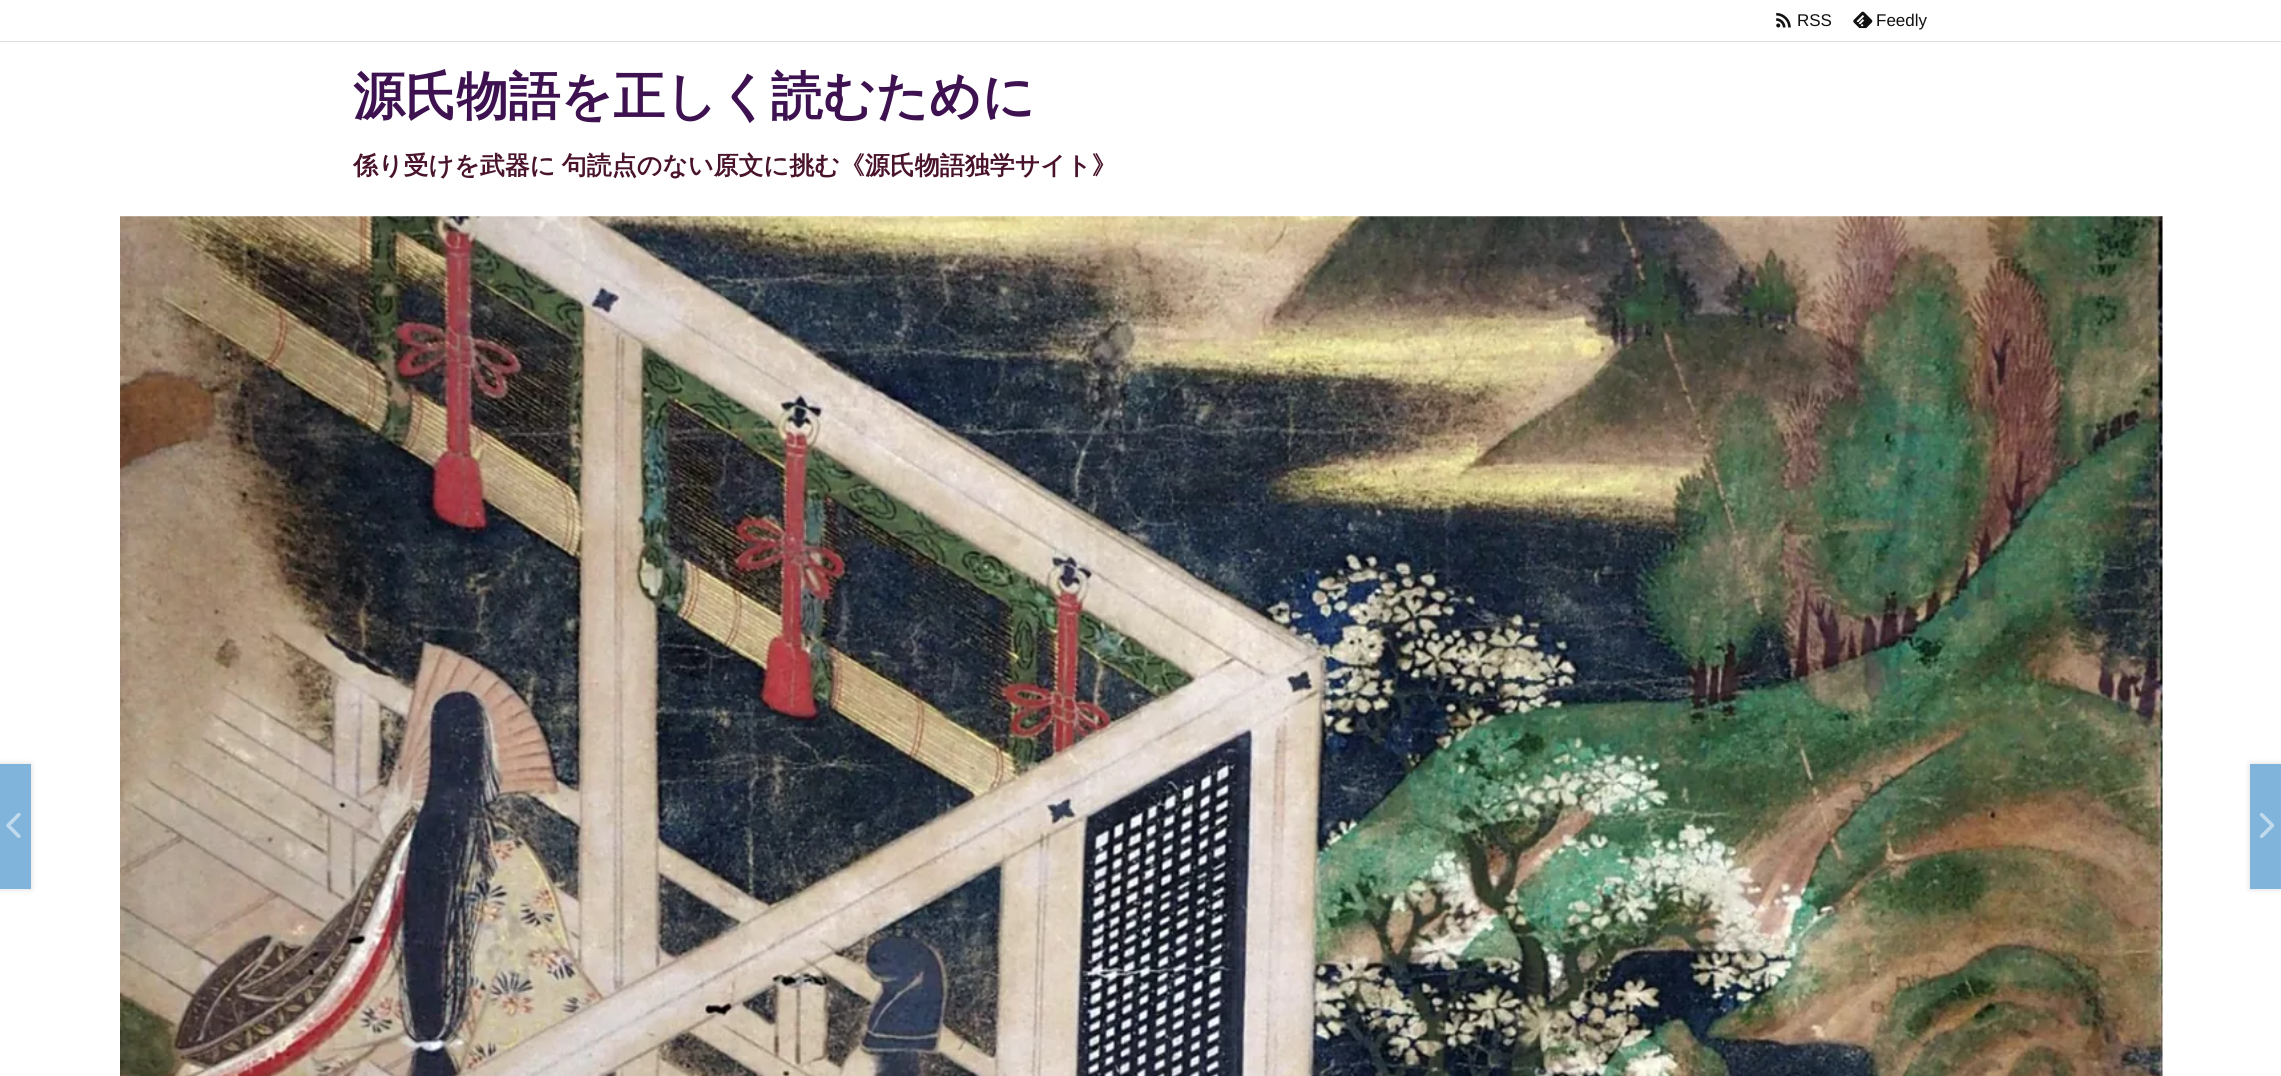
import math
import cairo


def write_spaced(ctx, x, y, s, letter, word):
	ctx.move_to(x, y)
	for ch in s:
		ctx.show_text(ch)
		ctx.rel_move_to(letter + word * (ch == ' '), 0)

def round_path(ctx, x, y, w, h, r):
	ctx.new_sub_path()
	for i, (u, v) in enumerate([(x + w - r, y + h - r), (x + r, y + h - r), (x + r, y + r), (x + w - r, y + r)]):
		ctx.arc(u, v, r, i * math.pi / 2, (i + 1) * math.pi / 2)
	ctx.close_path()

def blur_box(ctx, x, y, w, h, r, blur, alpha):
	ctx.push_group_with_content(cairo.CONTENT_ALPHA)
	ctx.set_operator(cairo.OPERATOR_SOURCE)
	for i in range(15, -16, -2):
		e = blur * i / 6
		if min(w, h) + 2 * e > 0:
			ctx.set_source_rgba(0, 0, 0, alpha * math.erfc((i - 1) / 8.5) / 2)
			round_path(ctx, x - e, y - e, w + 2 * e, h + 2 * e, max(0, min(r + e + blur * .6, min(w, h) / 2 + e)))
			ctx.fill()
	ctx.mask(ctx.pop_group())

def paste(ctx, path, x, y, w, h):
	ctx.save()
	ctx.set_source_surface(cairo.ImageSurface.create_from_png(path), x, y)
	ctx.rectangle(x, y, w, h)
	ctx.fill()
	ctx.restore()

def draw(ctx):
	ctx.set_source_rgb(1, 1, 1)
	ctx.paint()
	ctx.set_source_rgb(0.867, 0.867, 0.867)
	ctx.rectangle(0, 41, 2281, 1)
	ctx.fill()
	paste(ctx, 'media/1.png', 1776, 12, 15, 16)
	ctx.select_font_face('Liberation Sans')
	ctx.set_font_size(17)
	ctx.set_source_rgb(0.067, 0.067, 0.067)
	ctx.move_to(1797, 26)
	ctx.show_text('RSS')
	paste(ctx, 'media/2.png', 1853, 11, 20, 18)
	ctx.move_to(1876, 26)
	ctx.show_text('Feedly')
	ctx.select_font_face('WenQuanYi Zen Hei', cairo.FONT_SLANT_NORMAL, cairo.FONT_WEIGHT_BOLD)
	ctx.set_font_size(51.8)
	ctx.set_source_rgb(0.243, 0.071, 0.318)
	ctx.move_to(353, 114)
	ctx.show_text('源氏物語を正しく読むために')
	ctx.set_font_size(25)
	ctx.set_source_rgb(0.286, 0.078, 0.173)
	write_spaced(ctx, 353, 174, '係り受けを武器に 句読点のない原文に挑む《源氏物語独学サイト》', 0, -1)
	paste(ctx, 'media/3.png', 120, 216, 2043, 860)
	ctx.set_source_rgb(0.502, 0.502, 0.502)
	blur_box(ctx, 0, 764, 31, 125, 0, 3, 0.3)
	ctx.set_source_rgb(0.502, 0.706, 0.859)
	ctx.rectangle(0, 764, 31, 125)
	ctx.fill()
	paste(ctx, 'media/4.png', 6, 812, 15, 26)
	ctx.set_source_rgb(0.502, 0.502, 0.502)
	blur_box(ctx, 2250, 764, 31, 125, 0, 3, 0.3)
	ctx.set_source_rgb(0.502, 0.706, 0.859)
	ctx.rectangle(2250, 764, 31, 125)
	ctx.fill()
	paste(ctx, 'media/5.png', 2259, 812, 16, 26)


surface = cairo.ImageSurface(cairo.FORMAT_RGB24, 2281, 1076)
ctx = cairo.Context(surface)
options = cairo.FontOptions()
options.set_hint_metrics(cairo.HINT_METRICS_OFF)
options.set_hint_style(cairo.HINT_STYLE_NONE)
ctx.set_font_options(options)
ctx.set_miter_limit(4)
draw(ctx)
surface.write_to_png('image.png')
